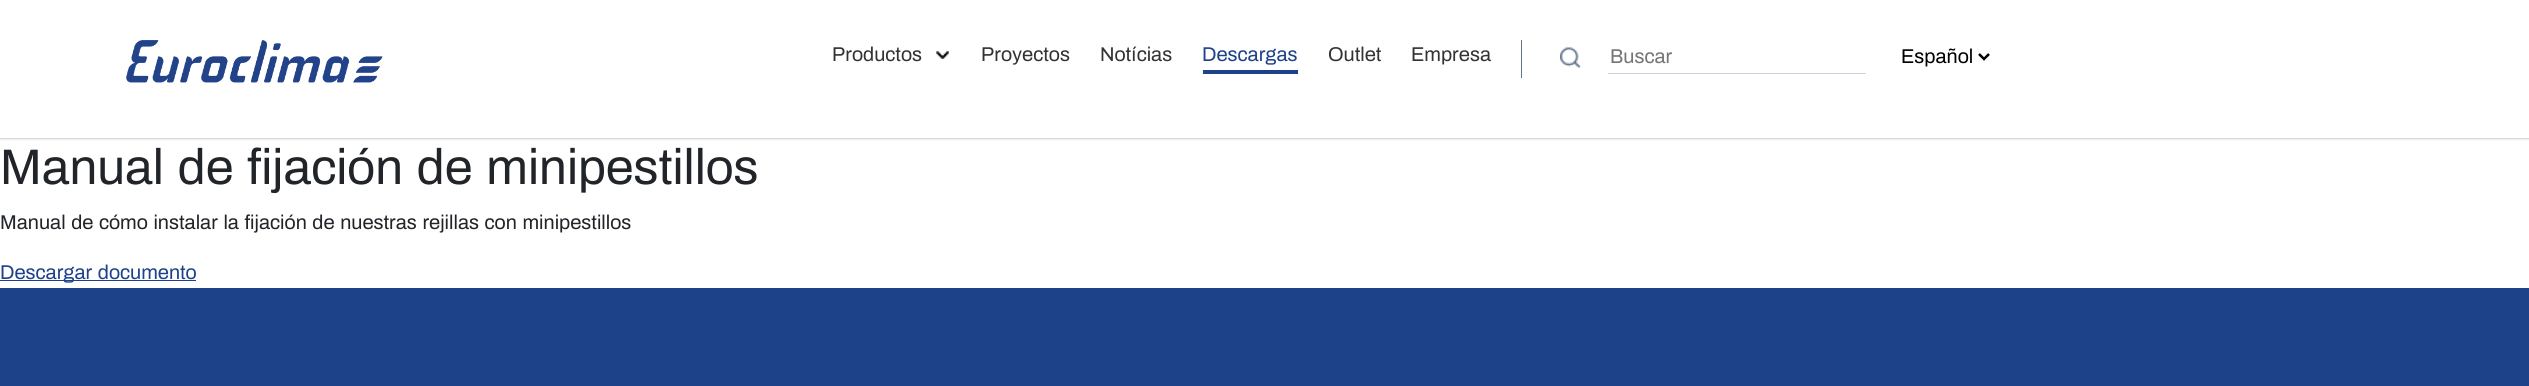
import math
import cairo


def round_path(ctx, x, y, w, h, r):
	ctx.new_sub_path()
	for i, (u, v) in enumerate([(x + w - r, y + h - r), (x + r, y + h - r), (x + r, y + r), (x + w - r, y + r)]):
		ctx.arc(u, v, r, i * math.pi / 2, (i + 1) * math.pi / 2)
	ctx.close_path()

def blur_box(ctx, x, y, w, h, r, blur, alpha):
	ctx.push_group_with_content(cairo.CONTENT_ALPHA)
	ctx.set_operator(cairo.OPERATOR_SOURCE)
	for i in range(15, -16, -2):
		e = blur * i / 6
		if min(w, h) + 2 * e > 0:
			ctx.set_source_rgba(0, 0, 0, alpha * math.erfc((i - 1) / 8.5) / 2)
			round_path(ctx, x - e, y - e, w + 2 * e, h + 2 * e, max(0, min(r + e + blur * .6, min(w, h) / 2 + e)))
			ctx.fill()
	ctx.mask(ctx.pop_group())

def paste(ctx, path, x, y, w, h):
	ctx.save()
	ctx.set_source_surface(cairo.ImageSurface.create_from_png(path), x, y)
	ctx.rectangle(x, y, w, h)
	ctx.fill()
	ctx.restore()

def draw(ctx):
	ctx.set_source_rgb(1, 1, 1)
	ctx.paint()
	ctx.save()
	ctx.set_fill_rule(cairo.FILL_RULE_EVEN_ODD)
	ctx.new_path()
	ctx.move_to(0, 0)
	ctx.line_to(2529, 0)
	ctx.line_to(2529, 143)
	ctx.line_to(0, 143)
	ctx.close_path()
	ctx.move_to(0, 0)
	ctx.line_to(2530, 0)
	ctx.line_to(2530, 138)
	ctx.line_to(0, 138)
	ctx.close_path()
	ctx.clip()
	ctx.set_source_rgb(0.031, 0.184, 0.286)
	blur_box(ctx, 0, 1, 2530, 138, 0, 1, 0.24)
	ctx.restore()
	paste(ctx, 'media/1.png', 126, 40, 257, 43)
	ctx.set_source_rgb(0.392, 0.455, 0.545)
	ctx.rectangle(1521, 40, 1, 38)
	ctx.fill()
	ctx.select_font_face('Archivo')
	ctx.set_font_size(20)
	ctx.set_source_rgb(0.2, 0.2, 0.2)
	ctx.move_to(832, 61)
	ctx.show_text('Productos')
	paste(ctx, 'media/2.png', 936, 51, 13, 8)
	ctx.move_to(981, 61)
	ctx.show_text('Proyectos')
	ctx.move_to(1100, 61)
	ctx.show_text('Notícias')
	ctx.set_source_rgb(0.114, 0.259, 0.541)
	ctx.rectangle(1203, 70, 95, 4)
	ctx.fill()
	ctx.move_to(1202, 61)
	ctx.show_text('Descargas')
	ctx.set_source_rgb(0.2, 0.2, 0.2)
	ctx.move_to(1328, 61)
	ctx.show_text('Outlet')
	ctx.move_to(1411, 61)
	ctx.show_text('Empresa')
	paste(ctx, 'media/3.png', 1560, 47, 21, 21)
	ctx.set_source_rgb(0.796, 0.835, 0.882)
	ctx.rectangle(1608, 73, 258, 1)
	ctx.fill()
	ctx.set_source_rgb(0.459, 0.459, 0.459)
	ctx.move_to(1610, 63)
	ctx.show_text('Buscar')
	ctx.new_path()
	ctx.move_to(1979, 54)
	ctx.line_to(1984, 59)
	ctx.line_to(1989, 54)
	ctx.set_source_rgb(0, 0, 0)
	ctx.set_line_width(2.5)
	ctx.stroke()
	ctx.move_to(1901, 63)
	ctx.show_text('Español')
	ctx.set_font_size(50)
	ctx.set_source_rgb(0.129, 0.145, 0.161)
	ctx.move_to(0, 184)
	ctx.show_text('Manual de fijación de minipestillos')
	ctx.set_font_size(20)
	ctx.move_to(0, 229)
	ctx.show_text('Manual de cómo instalar la fijación de nuestras rejillas con minipestillos')
	ctx.set_source_rgb(0.114, 0.259, 0.541)
	ctx.rectangle(0, 280, 196, 1)
	ctx.fill()
	ctx.move_to(0, 279)
	ctx.show_text('Descargar documento')
	ctx.rectangle(0, 288, 2529, 98)
	ctx.fill()


surface = cairo.ImageSurface(cairo.FORMAT_RGB24, 2529, 386)
ctx = cairo.Context(surface)
options = cairo.FontOptions()
options.set_hint_metrics(cairo.HINT_METRICS_OFF)
options.set_hint_style(cairo.HINT_STYLE_NONE)
ctx.set_font_options(options)
ctx.set_miter_limit(4)
draw(ctx)
surface.write_to_png('image.png')
